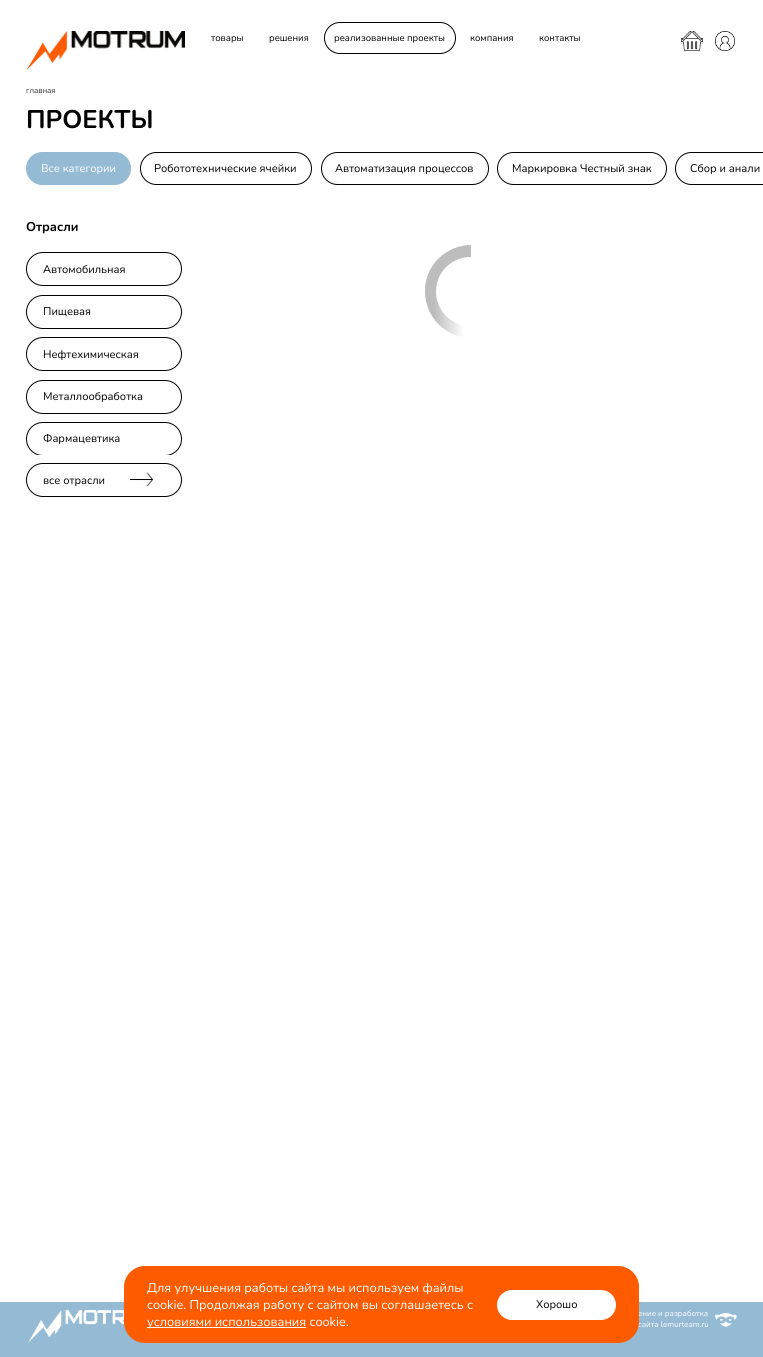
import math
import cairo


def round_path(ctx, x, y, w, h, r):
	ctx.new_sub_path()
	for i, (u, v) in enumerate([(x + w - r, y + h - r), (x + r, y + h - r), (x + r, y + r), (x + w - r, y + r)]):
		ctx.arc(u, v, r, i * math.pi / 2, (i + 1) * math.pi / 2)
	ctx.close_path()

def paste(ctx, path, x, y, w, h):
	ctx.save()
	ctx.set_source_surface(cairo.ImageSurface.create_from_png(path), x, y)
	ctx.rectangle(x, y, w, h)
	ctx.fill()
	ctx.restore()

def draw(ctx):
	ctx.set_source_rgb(1, 1, 1)
	ctx.paint()
	paste(ctx, 'media/1.png', 27, 31, 158, 39)
	ctx.select_font_face('Nunito')
	ctx.set_font_size(9.5)
	ctx.set_source_rgb(0, 0, 0)
	ctx.move_to(211, 41)
	ctx.show_text('товары')
	ctx.move_to(269, 41)
	ctx.show_text('решения')
	round_path(ctx, 324.5, 22.5, 131, 31, 15.5)
	ctx.set_line_width(1)
	ctx.stroke()
	for x, y, s in [
		(334, 41, 'реализованные проекты'),
		(470, 41, 'компания'),
		(539, 41, 'контакты'),
	]:
		ctx.move_to(x, y)
		ctx.show_text(s)
	paste(ctx, 'media/2.png', 681, 31, 22, 20)
	paste(ctx, 'media/3.png', 715, 31, 20, 20)
	ctx.select_font_face('Nunito Light')
	ctx.set_font_size(8)
	ctx.move_to(26, 93)
	ctx.show_text('главная')
	ctx.select_font_face('Nunito', cairo.FONT_SLANT_NORMAL, cairo.FONT_WEIGHT_BOLD)
	ctx.set_font_size(25.5)
	ctx.move_to(26, 128)
	ctx.show_text('ПРОЕКТЫ')
	ctx.set_source_rgb(0.584, 0.729, 0.831)
	round_path(ctx, 26.5, 152.5, 104, 32, 16)
	ctx.fill_preserve()
	ctx.stroke()
	ctx.select_font_face('Nunito')
	ctx.set_font_size(11.1)
	ctx.set_source_rgb(1, 1, 1)
	ctx.move_to(41, 172)
	ctx.show_text('Все категории')
	round_path(ctx, 140.5, 152.5, 171, 32, 16)
	ctx.set_source_rgb(0, 0, 0)
	ctx.stroke()
	ctx.move_to(154, 172)
	ctx.show_text('Робототехнические ячейки')
	round_path(ctx, 321.5, 152.5, 167, 32, 16)
	ctx.stroke()
	ctx.move_to(335, 172)
	ctx.show_text('Автоматизация процессов')
	round_path(ctx, 497.5, 152.5, 169, 32, 16)
	ctx.stroke()
	ctx.move_to(512, 172)
	ctx.show_text('Маркировка Честный знак')
	round_path(ctx, 675.5, 152.5, 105, 32, 16)
	ctx.stroke()
	ctx.move_to(690, 172)
	ctx.show_text('Сбор и анали')
	ctx.select_font_face('Nunito', cairo.FONT_SLANT_NORMAL, cairo.FONT_WEIGHT_BOLD)
	ctx.set_font_size(12.75)
	ctx.move_to(26, 231)
	ctx.show_text('Отрасли')
	round_path(ctx, 26.5, 252.5, 155, 33, 16.5)
	ctx.stroke()
	ctx.select_font_face('Nunito')
	ctx.set_font_size(11.1)
	ctx.move_to(43, 273)
	ctx.show_text('Автомобильная')
	round_path(ctx, 26.5, 295.5, 155, 33, 16.5)
	ctx.stroke()
	ctx.move_to(43, 315)
	ctx.show_text('Пищевая')
	round_path(ctx, 26.5, 337.5, 155, 33, 16.5)
	ctx.stroke()
	ctx.move_to(43, 358)
	ctx.show_text('Нефтехимическая')
	round_path(ctx, 26.5, 380.5, 155, 33, 16.5)
	ctx.stroke()
	ctx.move_to(43, 400)
	ctx.show_text('Металлообработка')
	ctx.save()
	ctx.rectangle(26, 252, 156, 203)
	ctx.clip()
	round_path(ctx, 26.5, 422.5, 155, 33, 16.5)
	ctx.stroke()
	ctx.restore()
	ctx.move_to(43, 442)
	ctx.show_text('Фармацевтика')
	round_path(ctx, 26.5, 463.5, 155, 33, 16.5)
	ctx.stroke()
	ctx.move_to(43, 484)
	ctx.show_text('все отрасли')
	paste(ctx, 'media/4.png', 129, 472, 24, 15)
	gradient = cairo.LinearGradient(425, 292, 518, 292)
	gradient.add_color_stop_rgba(0.1, 0.741, 0.741, 0.741, 1)
	gradient.add_color_stop_rgba(0.42, 1, 1, 1, 1)
	ctx.set_source(gradient)
	ctx.arc(471.5, 291.5, 46.5, 0, 2 * math.pi)
	ctx.fill()
	ctx.save()
	round_path(ctx, 425, 245, 93, 93, 46.5)
	ctx.clip()
	ctx.set_source_rgb(0.741, 0.741, 0.741)
	ctx.new_path()
	ctx.move_to(471, 245)
	ctx.line_to(471, 291)
	ctx.line_to(425, 291)
	ctx.curve_to(425, 265.5, 445.5, 245, 471, 245)
	ctx.close_path()
	ctx.fill()
	ctx.restore()
	ctx.set_source_rgb(1, 1, 1)
	round_path(ctx, 436, 257, 70, 69, 34.5)
	ctx.fill()
	ctx.set_source_rgb(0.584, 0.729, 0.831)
	ctx.rectangle(0, 1302, 763, 55)
	ctx.fill()
	paste(ctx, 'media/5.png', 28, 1310, 97, 33)
	ctx.set_font_size(8)
	ctx.set_source_rgb(1, 1, 1)
	ctx.move_to(638, 1316)
	ctx.show_text('ение и разработка')
	ctx.move_to(638, 1327)
	ctx.show_text('сайта lemurteam.ru')
	ctx.set_source_rgb(1, 0.357, 0)
	round_path(ctx, 124, 1266, 515, 77, 21)
	ctx.fill()
	ctx.set_font_size(12.75)
	ctx.set_source_rgb(1, 1, 1)
	ctx.move_to(147, 1292)
	ctx.show_text('Для улучшения работы сайта мы используем файлы')
	ctx.move_to(147, 1309)
	ctx.show_text('cookie. Продолжая работу с сайтом вы соглашаетесь с')
	ctx.rectangle(147, 1327, 159, 1)
	ctx.fill()
	ctx.move_to(147, 1326)
	ctx.show_text('условиями использования cookie.')
	round_path(ctx, 497, 1290, 119, 30, 15)
	ctx.fill()
	ctx.set_font_size(11.1)
	ctx.set_source_rgb(0, 0, 0)
	ctx.move_to(536, 1308)
	ctx.show_text('Хорошо')
	paste(ctx, 'media/6.png', 715, 1313, 22, 14)


surface = cairo.ImageSurface(cairo.FORMAT_RGB24, 763, 1357)
ctx = cairo.Context(surface)
options = cairo.FontOptions()
options.set_hint_metrics(cairo.HINT_METRICS_OFF)
options.set_hint_style(cairo.HINT_STYLE_NONE)
ctx.set_font_options(options)
ctx.set_miter_limit(4)
draw(ctx)
surface.write_to_png('image.png')
